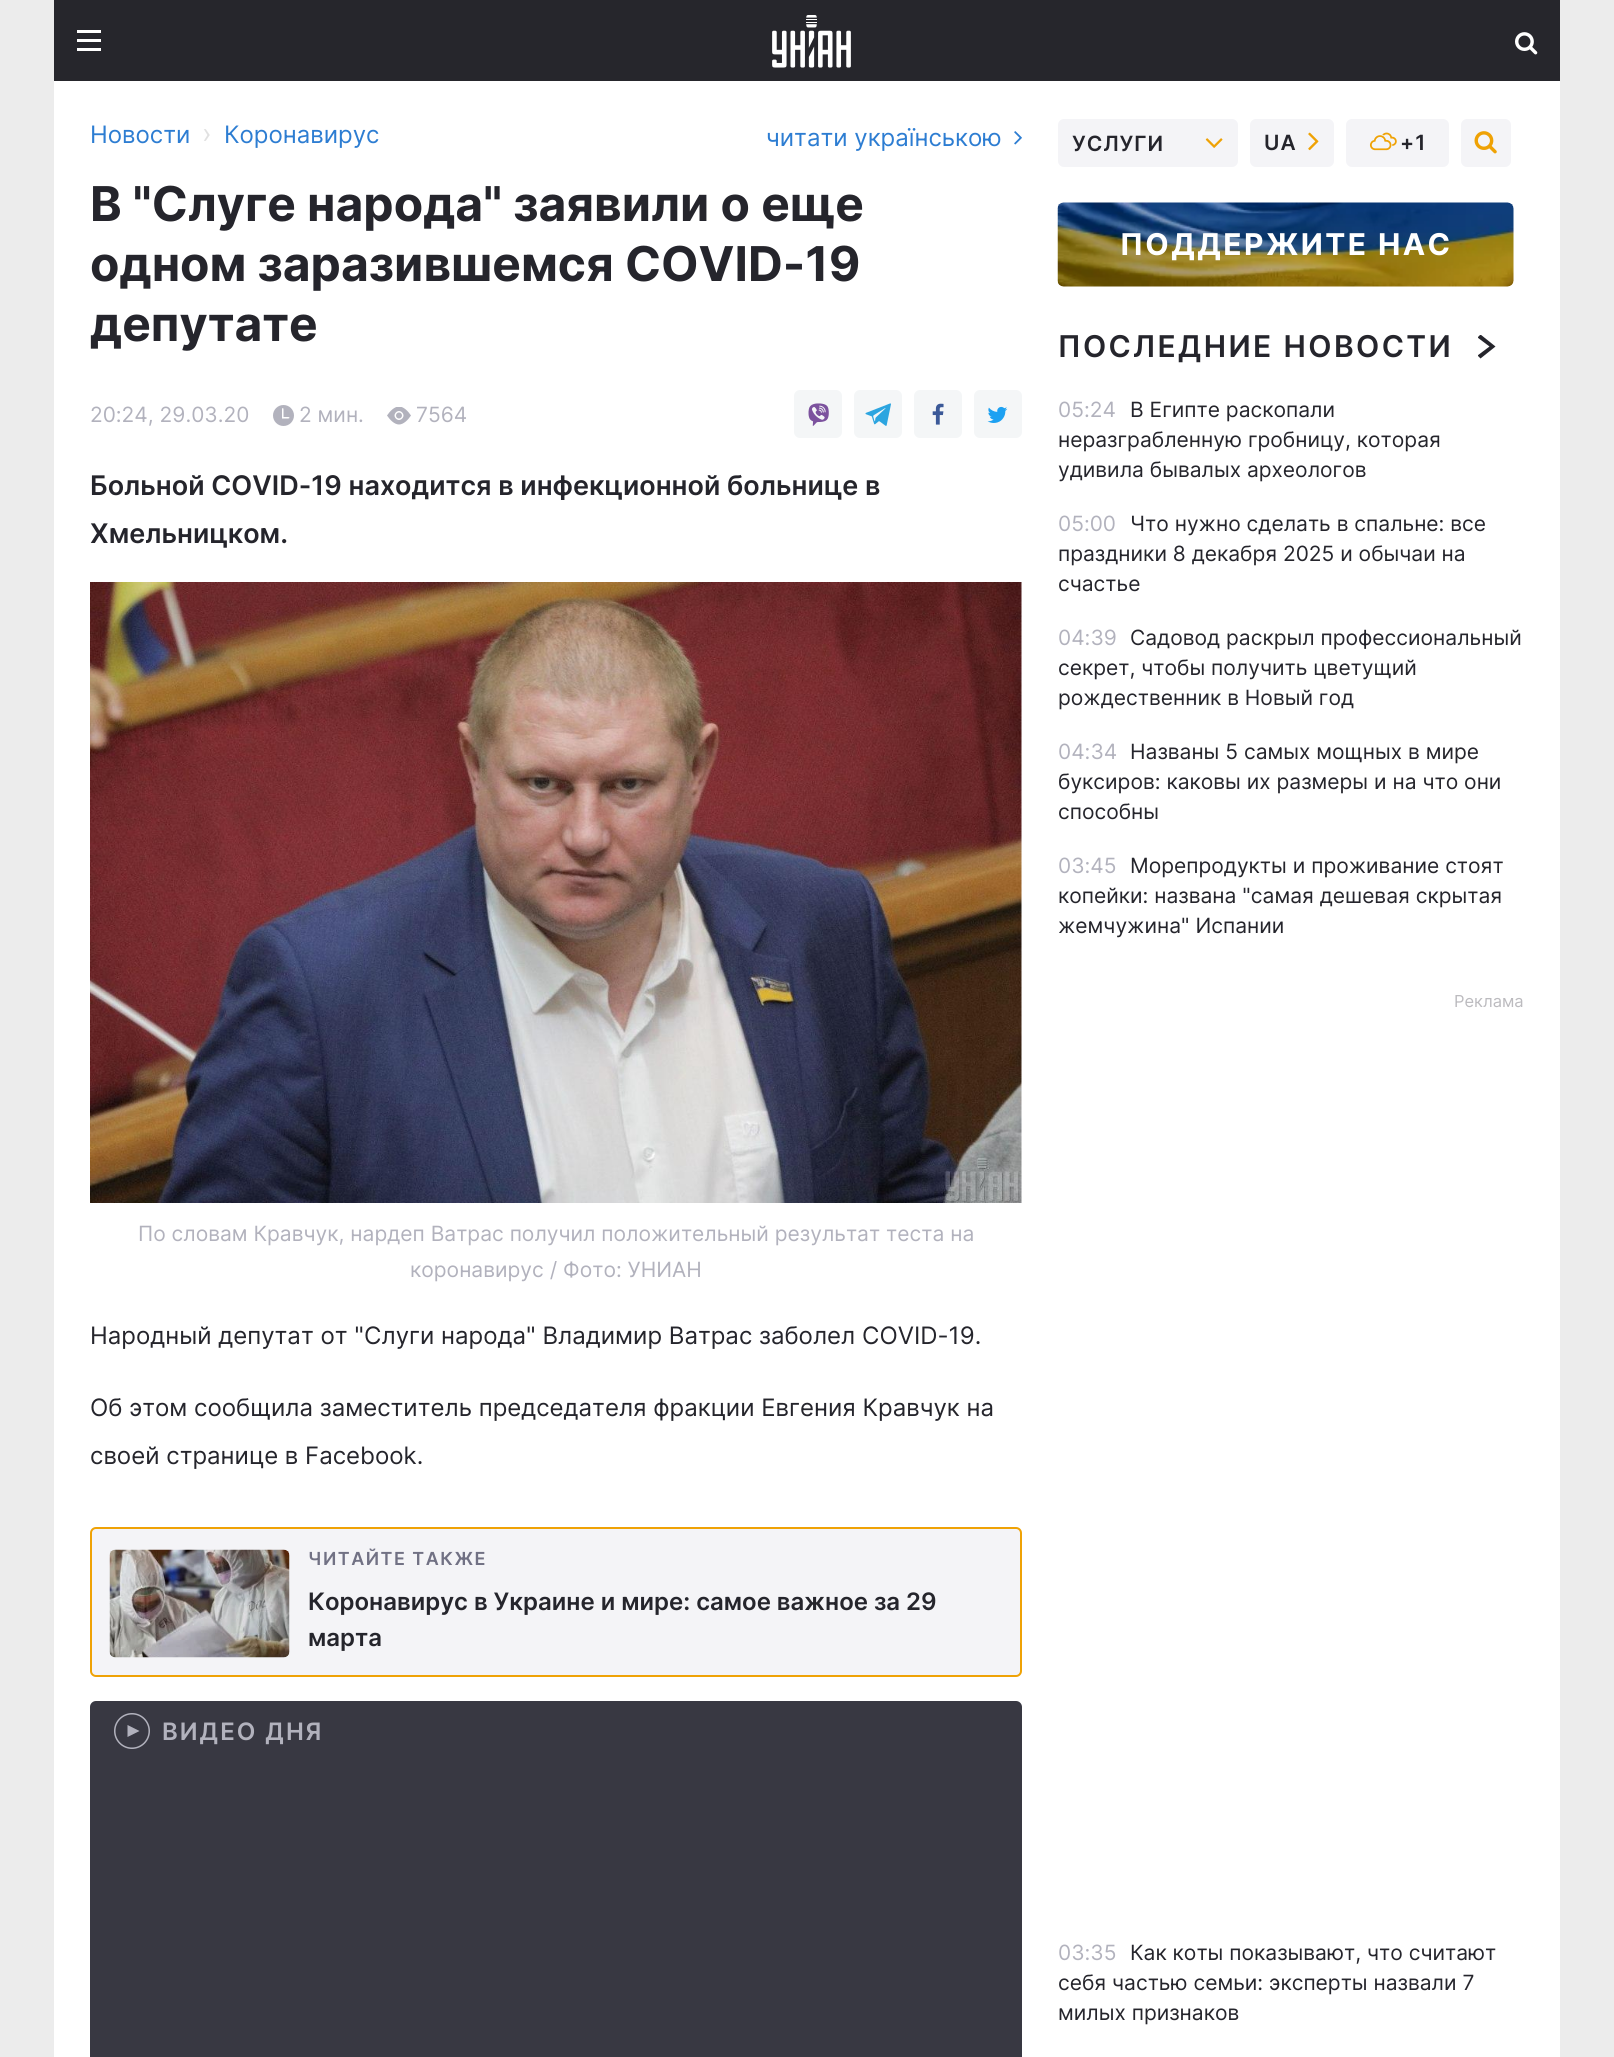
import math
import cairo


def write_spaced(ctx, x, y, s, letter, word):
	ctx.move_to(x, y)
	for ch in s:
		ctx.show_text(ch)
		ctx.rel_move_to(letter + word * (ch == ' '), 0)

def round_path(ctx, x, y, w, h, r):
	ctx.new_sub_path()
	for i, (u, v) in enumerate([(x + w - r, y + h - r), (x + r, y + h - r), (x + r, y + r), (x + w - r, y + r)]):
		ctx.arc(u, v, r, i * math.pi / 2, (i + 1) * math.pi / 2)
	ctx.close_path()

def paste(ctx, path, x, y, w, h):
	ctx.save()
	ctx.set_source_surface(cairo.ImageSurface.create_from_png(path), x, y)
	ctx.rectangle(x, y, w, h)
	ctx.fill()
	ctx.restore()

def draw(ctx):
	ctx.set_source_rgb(0.922, 0.922, 0.922)
	ctx.paint()
	ctx.set_source_rgb(1, 1, 1)
	ctx.rectangle(54, 81, 1506, 1976)
	ctx.fill()
	ctx.set_source_rgb(0.149, 0.149, 0.173)
	ctx.rectangle(54, 0, 1506, 81)
	ctx.fill()
	ctx.set_source_rgb(1, 1, 1)
	ctx.rectangle(77, 48, 24, 3)
	ctx.rectangle(77, 39, 24, 3)
	ctx.rectangle(77, 30, 24, 3)
	ctx.fill()
	paste(ctx, 'media/1.png', 772, 15, 79, 53)
	paste(ctx, 'media/2.png', 1515, 32, 23, 23)
	ctx.select_font_face('Inter')
	ctx.set_font_size(24)
	ctx.set_source_rgb(0.176, 0.49, 0.824)
	ctx.move_to(90, 143)
	ctx.show_text('Новости')
	ctx.set_font_size(27)
	ctx.set_source_rgb(0.882, 0.882, 0.882)
	ctx.move_to(202, 143)
	ctx.show_text('›')
	ctx.set_font_size(24)
	ctx.set_source_rgb(0.176, 0.49, 0.824)
	ctx.move_to(224, 143)
	ctx.show_text('Коронавирус')
	ctx.move_to(766, 146)
	ctx.show_text('читати українською')
	paste(ctx, 'media/3.png', 1014, 131, 8, 14)
	ctx.select_font_face('Inter', cairo.FONT_SLANT_NORMAL, cairo.FONT_WEIGHT_BOLD)
	ctx.set_font_size(48)
	ctx.set_source_rgb(0.145, 0.145, 0.173)
	for x, y, s in [
		(90, 221, 'В "Слуге народа" заявили о еще'),
		(90, 281, 'одном заразившемся COVID-19'),
		(90, 341, 'депутате'),
	]:
		ctx.move_to(x, y)
		ctx.show_text(s)
	ctx.select_font_face('Inter')
	ctx.set_font_size(21)
	ctx.set_source_rgb(0.698, 0.698, 0.741)
	ctx.move_to(90, 422)
	ctx.show_text('20:24, 29.03.20')
	paste(ctx, 'media/4.png', 273, 405, 21, 21)
	ctx.move_to(299, 422)
	ctx.show_text('2 мин.')
	paste(ctx, 'media/5.png', 387, 407, 24, 18)
	ctx.move_to(416, 422)
	ctx.show_text('7564')
	ctx.set_source_rgb(0.957, 0.961, 0.965)
	round_path(ctx, 794, 390, 48, 48, 6)
	ctx.fill()
	paste(ctx, 'media/6.png', 808, 403, 21, 23)
	round_path(ctx, 854, 390, 48, 48, 6)
	ctx.fill()
	paste(ctx, 'media/7.png', 865, 403, 26, 23)
	round_path(ctx, 914, 390, 48, 48, 6)
	ctx.fill()
	paste(ctx, 'media/8.png', 932, 403, 12, 22)
	round_path(ctx, 974, 390, 48, 48, 6)
	ctx.fill()
	paste(ctx, 'media/9.png', 987, 406, 21, 17)
	ctx.select_font_face('Inter SemiBold')
	ctx.set_font_size(27)
	ctx.set_source_rgb(0.145, 0.145, 0.173)
	ctx.move_to(90, 495)
	ctx.show_text('Больной COVID-19 находится в инфекционной больнице в')
	ctx.move_to(90, 543)
	ctx.show_text('Хмельницком.')
	paste(ctx, 'media/10.png', 90, 582, 932, 621)
	ctx.select_font_face('Inter')
	ctx.set_font_size(21)
	ctx.set_source_rgb(0.698, 0.698, 0.741)
	ctx.move_to(138, 1241)
	ctx.show_text('По словам Кравчук, нардеп Ватрас получил положительный результат теста на')
	ctx.move_to(410, 1277)
	ctx.show_text('коронавирус / Фото: УНИАН')
	ctx.set_font_size(24)
	ctx.set_source_rgb(0.145, 0.145, 0.173)
	for x, y, s in [
		(90, 1344, 'Народный депутат от "Слуги народа" Владимир Ватрас заболел COVID-19.'),
		(90, 1416, 'Об этом сообщила заместитель председателя фракции Евгения Кравчук на'),
		(90, 1464, 'своей странице в Facebook.'),
	]:
		ctx.move_to(x, y)
		ctx.show_text(s)
	ctx.set_source_rgb(0.957, 0.957, 0.965)
	round_path(ctx, 91, 1528, 930, 148, 5)
	ctx.fill_preserve()
	ctx.set_source_rgb(0.937, 0.635, 0.02)
	ctx.stroke()
	ctx.select_font_face('Inter SemiBold')
	ctx.set_font_size(18)
	ctx.set_source_rgb(0.443, 0.443, 0.518)
	write_spaced(ctx, 308, 1565, 'ЧИТАЙТЕ ТАКЖЕ', 1.5, 0)
	paste(ctx, 'media/11.png', 109, 1549, 181, 109)
	ctx.set_font_size(24)
	ctx.set_source_rgb(0.145, 0.145, 0.173)
	ctx.move_to(308, 1610)
	ctx.show_text('Коронавирус в Украине и мире: самое важное за 29')
	ctx.move_to(308, 1646)
	ctx.show_text('марта')
	ctx.set_source_rgb(0.22, 0.22, 0.259)
	round_path(ctx, 90, 1701, 932, 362, 6)
	ctx.fill()
	ctx.set_source_rgb(0.698, 0.698, 0.741)
	ctx.new_path()
	ctx.move_to(139.5, 1731)
	ctx.line_to(127.5, 1737)
	ctx.line_to(127.5, 1725)
	ctx.close_path()
	ctx.fill()
	ctx.arc(132, 1731, 17.25, 0, 2 * math.pi)
	ctx.set_line_width(1.5)
	ctx.stroke()
	write_spaced(ctx, 162, 1740, 'ВИДЕО ДНЯ', 2, 0)
	ctx.set_source_rgb(0.957, 0.957, 0.965)
	round_path(ctx, 1059, 120, 178, 46, 5)
	ctx.fill_preserve()
	ctx.set_line_width(2)
	ctx.stroke()
	ctx.set_font_size(21)
	ctx.set_source_rgb(0.145, 0.145, 0.173)
	write_spaced(ctx, 1072, 151, 'УСЛУГИ', 1, 0)
	paste(ctx, 'media/12.png', 1205, 138, 18, 10)
	ctx.set_source_rgb(0.957, 0.957, 0.965)
	round_path(ctx, 1251, 120, 82, 46, 5)
	ctx.fill_preserve()
	ctx.stroke()
	ctx.set_source_rgb(0.145, 0.145, 0.173)
	write_spaced(ctx, 1264, 150, 'UA', 1, 0)
	paste(ctx, 'media/13.png', 1308, 132, 11, 19)
	ctx.set_source_rgb(0.957, 0.957, 0.965)
	round_path(ctx, 1347, 120, 101, 46, 5)
	ctx.fill_preserve()
	ctx.stroke()
	paste(ctx, 'media/14.png', 1369, 132, 28, 19)
	ctx.set_source_rgb(0.145, 0.145, 0.173)
	write_spaced(ctx, 1400, 150, '+1', 1, 0)
	ctx.set_source_rgb(0.957, 0.957, 0.965)
	round_path(ctx, 1462, 120, 48, 46, 5)
	ctx.fill_preserve()
	ctx.stroke()
	paste(ctx, 'media/15.png', 1474, 131, 23, 23)
	paste(ctx, 'media/16.png', 1057, 202, 457, 85)
	ctx.select_font_face('Inter', cairo.FONT_SLANT_NORMAL, cairo.FONT_WEIGHT_BOLD)
	ctx.set_font_size(30)
	ctx.set_source_rgb(1, 1, 1)
	write_spaced(ctx, 1120, 255, 'ПОДДЕРЖИТЕ НАС', 2.4, 0)
	ctx.select_font_face('Inter SemiBold')
	ctx.set_source_rgb(0.145, 0.145, 0.173)
	write_spaced(ctx, 1058, 357, 'ПОСЛЕДНИЕ НОВОСТИ', 2.4, 0)
	ctx.save()
	ctx.rectangle(1478, 335, 18, 24)
	ctx.clip()
	ctx.new_path()
	ctx.move_to(1480.5, 358.5)
	ctx.line_to(1495.5, 346.5)
	ctx.line_to(1480.5, 334.5)
	ctx.line_to(1477.5, 337.5)
	ctx.line_to(1489.5, 346.5)
	ctx.line_to(1477.5, 355.5)
	ctx.close_path()
	ctx.fill()
	ctx.restore()
	ctx.select_font_face('Inter')
	ctx.set_font_size(21)
	for x, y, s in [
		(1130, 417, 'В Египте раскопали'),
		(1058, 447, 'неразграбленную гробницу, которая'),
		(1058, 477, 'удивила бывалых археологов'),
	]:
		ctx.move_to(x, y)
		ctx.show_text(s)
	ctx.set_source_rgb(0.698, 0.698, 0.741)
	ctx.move_to(1058, 417)
	ctx.show_text('05:24')
	ctx.move_to(1058, 531)
	ctx.show_text('05:00')
	ctx.set_source_rgb(0.145, 0.145, 0.173)
	for x, y, s in [
		(1130, 531, 'Что нужно сделать в спальне: все'),
		(1058, 561, 'праздники 8 декабря 2025 и обычаи на'),
		(1058, 591, 'счастье'),
	]:
		ctx.move_to(x, y)
		ctx.show_text(s)
	ctx.set_source_rgb(0.698, 0.698, 0.741)
	ctx.move_to(1058, 645)
	ctx.show_text('04:39')
	ctx.set_source_rgb(0.145, 0.145, 0.173)
	for x, y, s in [
		(1130, 645, 'Садовод раскрыл профессиональный'),
		(1058, 675, 'секрет, чтобы получить цветущий'),
		(1058, 705, 'рождественник в Новый год'),
	]:
		ctx.move_to(x, y)
		ctx.show_text(s)
	ctx.set_source_rgb(0.698, 0.698, 0.741)
	ctx.move_to(1058, 759)
	ctx.show_text('04:34')
	ctx.set_source_rgb(0.145, 0.145, 0.173)
	for x, y, s in [
		(1130, 759, 'Названы 5 самых мощных в мире'),
		(1058, 789, 'буксиров: каковы их размеры и на что они'),
		(1058, 819, 'способны'),
		(1130, 873, 'Морепродукты и проживание стоят'),
		(1058, 903, 'копейки: названа "самая дешевая скрытая'),
		(1058, 933, 'жемчужина" Испании'),
	]:
		ctx.move_to(x, y)
		ctx.show_text(s)
	ctx.set_source_rgb(0.698, 0.698, 0.741)
	ctx.move_to(1058, 873)
	ctx.show_text('03:45')
	ctx.set_font_size(16.5)
	ctx.set_source_rgb(0.737, 0.733, 0.749)
	ctx.move_to(1454, 1007)
	ctx.show_text('Реклама')
	ctx.set_font_size(21)
	ctx.set_source_rgb(0.698, 0.698, 0.741)
	ctx.move_to(1058, 1960)
	ctx.show_text('03:35')
	ctx.set_source_rgb(0.145, 0.145, 0.173)
	for x, y, s in [
		(1130, 1960, 'Как коты показывают, что считают'),
		(1058, 1990, 'себя частью семьи: эксперты назвали 7'),
		(1058, 2020, 'милых признаков'),
	]:
		ctx.move_to(x, y)
		ctx.show_text(s)


surface = cairo.ImageSurface(cairo.FORMAT_RGB24, 1614, 2057)
ctx = cairo.Context(surface)
options = cairo.FontOptions()
options.set_hint_metrics(cairo.HINT_METRICS_OFF)
options.set_hint_style(cairo.HINT_STYLE_NONE)
ctx.set_font_options(options)
ctx.set_miter_limit(4)
draw(ctx)
surface.write_to_png('image.png')
